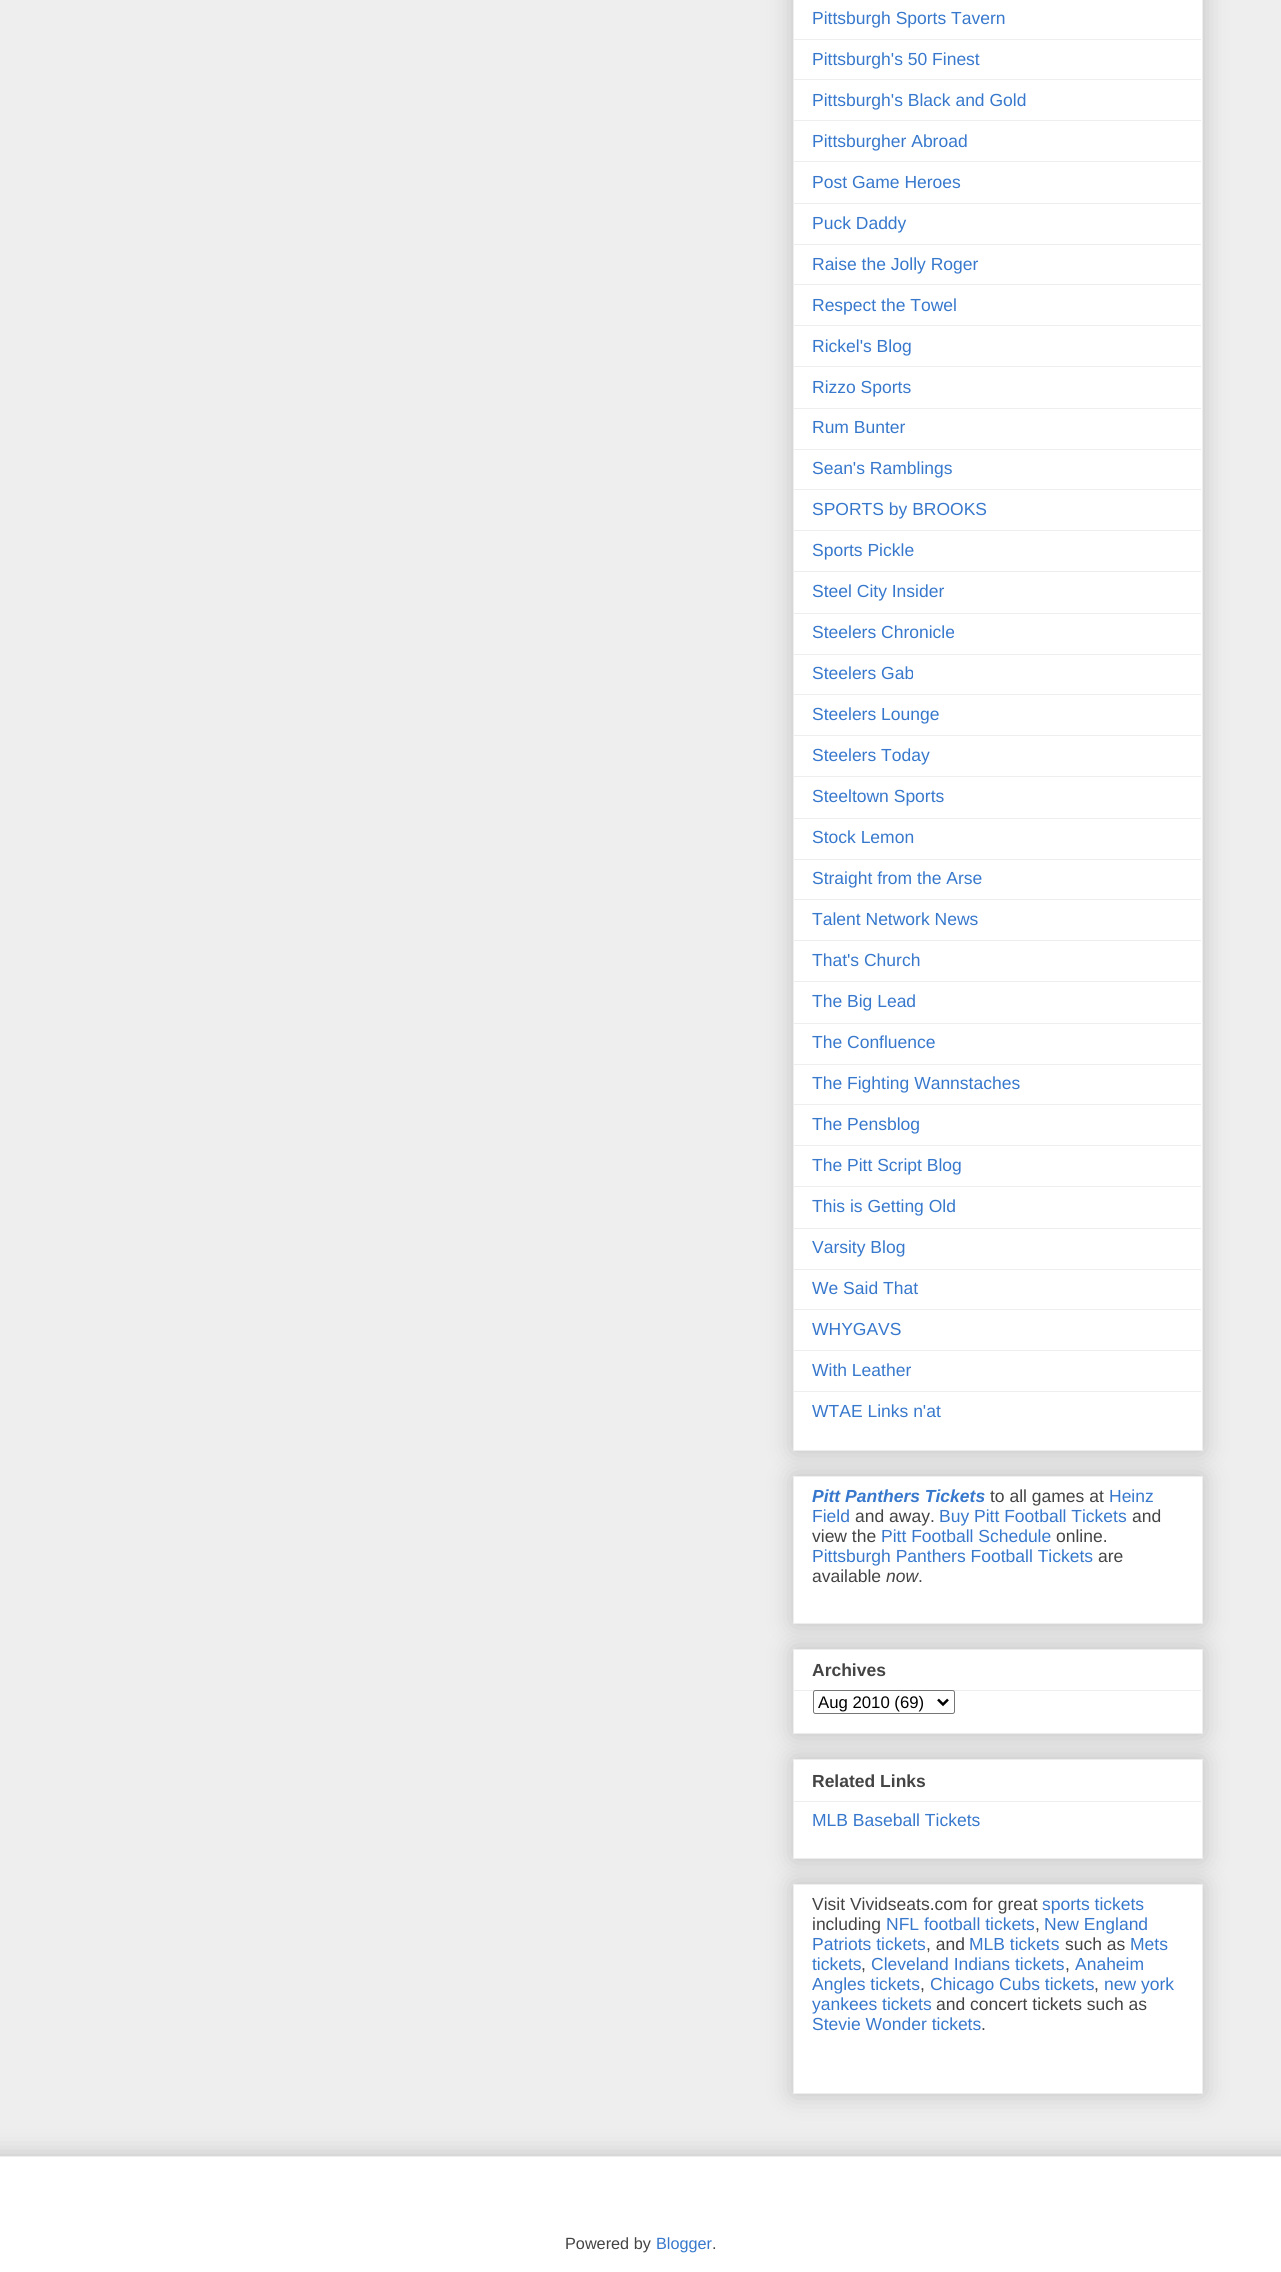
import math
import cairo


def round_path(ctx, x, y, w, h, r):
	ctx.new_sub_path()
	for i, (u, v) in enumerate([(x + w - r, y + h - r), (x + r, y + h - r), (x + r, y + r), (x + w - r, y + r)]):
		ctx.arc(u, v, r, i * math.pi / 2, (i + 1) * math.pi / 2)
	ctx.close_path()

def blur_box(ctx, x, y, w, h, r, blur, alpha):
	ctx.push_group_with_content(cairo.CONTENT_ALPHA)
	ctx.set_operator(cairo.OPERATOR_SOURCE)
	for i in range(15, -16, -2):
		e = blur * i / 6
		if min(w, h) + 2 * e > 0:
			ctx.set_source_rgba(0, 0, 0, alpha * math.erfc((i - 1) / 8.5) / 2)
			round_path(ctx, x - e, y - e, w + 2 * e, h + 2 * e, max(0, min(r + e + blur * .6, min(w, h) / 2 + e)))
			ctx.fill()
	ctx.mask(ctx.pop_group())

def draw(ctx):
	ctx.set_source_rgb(0.933, 0.933, 0.933)
	ctx.paint()
	ctx.set_source_rgb(0, 0, 0)
	blur_box(ctx, 793, -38, 410, 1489, 0, 12.5, 0.2)
	ctx.set_source_rgb(1, 1, 1)
	ctx.rectangle(793.5, -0.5, 409, 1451)
	ctx.fill_preserve()
	ctx.set_source_rgb(0.933, 0.933, 0.933)
	ctx.set_line_width(1)
	ctx.stroke()
	ctx.select_font_face('Liberation Sans')
	ctx.set_font_size(17.5)
	ctx.set_source_rgb(0.216, 0.471, 0.804)
	ctx.move_to(812, 24)
	ctx.show_text('Pittsburgh Sports Tavern')
	ctx.set_source_rgb(0.933, 0.933, 0.933)
	ctx.rectangle(794, 39, 407, 1)
	ctx.fill()
	ctx.set_source_rgb(0.216, 0.471, 0.804)
	ctx.move_to(812, 65)
	ctx.show_text('Pittsburgh\'s 50 Finest')
	ctx.set_source_rgb(0.933, 0.933, 0.933)
	ctx.rectangle(794, 79, 407, 1)
	ctx.fill()
	ctx.set_source_rgb(0.216, 0.471, 0.804)
	ctx.move_to(812, 106)
	ctx.show_text('Pittsburgh\'s Black and Gold')
	ctx.set_source_rgb(0.933, 0.933, 0.933)
	ctx.rectangle(794, 120, 407, 1)
	ctx.fill()
	ctx.set_source_rgb(0.216, 0.471, 0.804)
	ctx.move_to(812, 147)
	ctx.show_text('Pittsburgher Abroad')
	ctx.set_source_rgb(0.933, 0.933, 0.933)
	ctx.rectangle(794, 161, 407, 1)
	ctx.fill()
	ctx.set_source_rgb(0.216, 0.471, 0.804)
	ctx.move_to(812, 188)
	ctx.show_text('Post Game Heroes')
	ctx.set_source_rgb(0.933, 0.933, 0.933)
	ctx.rectangle(794, 203, 407, 1)
	ctx.fill()
	ctx.set_source_rgb(0.216, 0.471, 0.804)
	ctx.move_to(812, 229)
	ctx.show_text('Puck Daddy')
	ctx.set_source_rgb(0.933, 0.933, 0.933)
	ctx.rectangle(794, 244, 407, 1)
	ctx.fill()
	ctx.set_source_rgb(0.216, 0.471, 0.804)
	ctx.move_to(812, 270)
	ctx.show_text('Raise the Jolly Roger')
	ctx.set_source_rgb(0.933, 0.933, 0.933)
	ctx.rectangle(794, 284, 407, 1)
	ctx.fill()
	ctx.set_source_rgb(0.216, 0.471, 0.804)
	ctx.move_to(812, 311)
	ctx.show_text('Respect the Towel')
	ctx.set_source_rgb(0.933, 0.933, 0.933)
	ctx.rectangle(794, 325, 407, 1)
	ctx.fill()
	ctx.set_source_rgb(0.216, 0.471, 0.804)
	ctx.move_to(812, 352)
	ctx.show_text('Rickel\'s Blog')
	ctx.set_source_rgb(0.933, 0.933, 0.933)
	ctx.rectangle(794, 366, 407, 1)
	ctx.fill()
	ctx.set_source_rgb(0.216, 0.471, 0.804)
	ctx.move_to(812, 393)
	ctx.show_text('Rizzo Sports')
	ctx.set_source_rgb(0.933, 0.933, 0.933)
	ctx.rectangle(794, 408, 407, 1)
	ctx.fill()
	ctx.set_source_rgb(0.216, 0.471, 0.804)
	ctx.move_to(812, 433)
	ctx.show_text('Rum Bunter')
	ctx.set_source_rgb(0.933, 0.933, 0.933)
	ctx.rectangle(794, 449, 407, 1)
	ctx.fill()
	ctx.set_source_rgb(0.216, 0.471, 0.804)
	ctx.move_to(812, 474)
	ctx.show_text('Sean\'s Ramblings')
	ctx.set_source_rgb(0.933, 0.933, 0.933)
	ctx.rectangle(794, 489, 407, 1)
	ctx.fill()
	ctx.set_source_rgb(0.216, 0.471, 0.804)
	ctx.move_to(812, 515)
	ctx.show_text('SPORTS by BROOKS')
	ctx.set_source_rgb(0.933, 0.933, 0.933)
	ctx.rectangle(794, 530, 407, 1)
	ctx.fill()
	ctx.set_source_rgb(0.216, 0.471, 0.804)
	ctx.move_to(812, 556)
	ctx.show_text('Sports Pickle')
	ctx.set_source_rgb(0.933, 0.933, 0.933)
	ctx.rectangle(794, 571, 407, 1)
	ctx.fill()
	ctx.set_source_rgb(0.216, 0.471, 0.804)
	ctx.move_to(812, 597)
	ctx.show_text('Steel City Insider')
	ctx.set_source_rgb(0.933, 0.933, 0.933)
	ctx.rectangle(794, 613, 407, 1)
	ctx.fill()
	ctx.set_source_rgb(0.216, 0.471, 0.804)
	ctx.move_to(812, 638)
	ctx.show_text('Steelers Chronicle')
	ctx.set_source_rgb(0.933, 0.933, 0.933)
	ctx.rectangle(794, 654, 407, 1)
	ctx.fill()
	ctx.set_source_rgb(0.216, 0.471, 0.804)
	ctx.move_to(812, 679)
	ctx.show_text('Steelers Gab')
	ctx.set_source_rgb(0.933, 0.933, 0.933)
	ctx.rectangle(794, 694, 407, 1)
	ctx.fill()
	ctx.set_source_rgb(0.216, 0.471, 0.804)
	ctx.move_to(812, 720)
	ctx.show_text('Steelers Lounge')
	ctx.set_source_rgb(0.933, 0.933, 0.933)
	ctx.rectangle(794, 735, 407, 1)
	ctx.fill()
	ctx.set_source_rgb(0.216, 0.471, 0.804)
	ctx.move_to(812, 761)
	ctx.show_text('Steelers Today')
	ctx.set_source_rgb(0.933, 0.933, 0.933)
	ctx.rectangle(794, 776, 407, 1)
	ctx.fill()
	ctx.set_source_rgb(0.216, 0.471, 0.804)
	ctx.move_to(812, 802)
	ctx.show_text('Steeltown Sports')
	ctx.set_source_rgb(0.933, 0.933, 0.933)
	ctx.rectangle(794, 818, 407, 1)
	ctx.fill()
	ctx.set_source_rgb(0.216, 0.471, 0.804)
	ctx.move_to(812, 843)
	ctx.show_text('Stock Lemon')
	ctx.set_source_rgb(0.933, 0.933, 0.933)
	ctx.rectangle(794, 859, 407, 1)
	ctx.fill()
	ctx.set_source_rgb(0.216, 0.471, 0.804)
	ctx.move_to(812, 884)
	ctx.show_text('Straight from the Arse')
	ctx.set_source_rgb(0.933, 0.933, 0.933)
	ctx.rectangle(794, 899, 407, 1)
	ctx.fill()
	ctx.set_source_rgb(0.216, 0.471, 0.804)
	ctx.move_to(812, 925)
	ctx.show_text('Talent Network News')
	ctx.set_source_rgb(0.933, 0.933, 0.933)
	ctx.rectangle(794, 940, 407, 1)
	ctx.fill()
	ctx.set_source_rgb(0.216, 0.471, 0.804)
	ctx.move_to(812, 966)
	ctx.show_text('That\'s Church')
	ctx.set_source_rgb(0.933, 0.933, 0.933)
	ctx.rectangle(794, 981, 407, 1)
	ctx.fill()
	ctx.set_source_rgb(0.216, 0.471, 0.804)
	ctx.move_to(812, 1007)
	ctx.show_text('The Big Lead')
	ctx.set_source_rgb(0.933, 0.933, 0.933)
	ctx.rectangle(794, 1023, 407, 1)
	ctx.fill()
	ctx.set_source_rgb(0.216, 0.471, 0.804)
	ctx.move_to(812, 1048)
	ctx.show_text('The Confluence')
	ctx.set_source_rgb(0.933, 0.933, 0.933)
	ctx.rectangle(794, 1064, 407, 1)
	ctx.fill()
	ctx.set_source_rgb(0.216, 0.471, 0.804)
	ctx.move_to(812, 1089)
	ctx.show_text('The Fighting Wannstaches')
	ctx.set_source_rgb(0.933, 0.933, 0.933)
	ctx.rectangle(794, 1104, 407, 1)
	ctx.fill()
	ctx.set_source_rgb(0.216, 0.471, 0.804)
	ctx.move_to(812, 1130)
	ctx.show_text('The Pensblog')
	ctx.set_source_rgb(0.933, 0.933, 0.933)
	ctx.rectangle(794, 1145, 407, 1)
	ctx.fill()
	ctx.set_source_rgb(0.216, 0.471, 0.804)
	ctx.move_to(812, 1171)
	ctx.show_text('The Pitt Script Blog')
	ctx.set_source_rgb(0.933, 0.933, 0.933)
	ctx.rectangle(794, 1186, 407, 1)
	ctx.fill()
	ctx.set_source_rgb(0.216, 0.471, 0.804)
	ctx.move_to(812, 1212)
	ctx.show_text('This is Getting Old')
	ctx.set_source_rgb(0.933, 0.933, 0.933)
	ctx.rectangle(794, 1228, 407, 1)
	ctx.fill()
	ctx.set_source_rgb(0.216, 0.471, 0.804)
	ctx.move_to(812, 1253)
	ctx.show_text('Varsity Blog')
	ctx.set_source_rgb(0.933, 0.933, 0.933)
	ctx.rectangle(794, 1269, 407, 1)
	ctx.fill()
	ctx.set_source_rgb(0.216, 0.471, 0.804)
	ctx.move_to(812, 1294)
	ctx.show_text('We Said That')
	ctx.set_source_rgb(0.933, 0.933, 0.933)
	ctx.rectangle(794, 1309, 407, 1)
	ctx.fill()
	ctx.set_source_rgb(0.216, 0.471, 0.804)
	ctx.move_to(812, 1335)
	ctx.show_text('WHYGAVS')
	ctx.set_source_rgb(0.933, 0.933, 0.933)
	ctx.rectangle(794, 1350, 407, 1)
	ctx.fill()
	ctx.set_source_rgb(0.216, 0.471, 0.804)
	ctx.move_to(812, 1376)
	ctx.show_text('With Leather')
	ctx.set_source_rgb(0.933, 0.933, 0.933)
	ctx.rectangle(794, 1391, 407, 1)
	ctx.fill()
	ctx.set_source_rgb(0.216, 0.471, 0.804)
	ctx.move_to(812, 1417)
	ctx.show_text('WTAE Links n\'at')
	ctx.set_source_rgb(0, 0, 0)
	blur_box(ctx, 793, 1476, 410, 148, 0, 12.5, 0.2)
	ctx.set_source_rgb(1, 1, 1)
	ctx.rectangle(793.5, 1476.5, 409, 147)
	ctx.fill_preserve()
	ctx.set_source_rgb(0.933, 0.933, 0.933)
	ctx.stroke()
	ctx.select_font_face('Liberation Sans', cairo.FONT_SLANT_ITALIC, cairo.FONT_WEIGHT_BOLD)
	ctx.set_source_rgb(0.216, 0.471, 0.804)
	ctx.move_to(812, 1502)
	ctx.show_text('Pitt Panthers Tickets')
	ctx.select_font_face('Liberation Sans')
	ctx.set_source_rgb(0.267, 0.267, 0.267)
	ctx.move_to(990, 1502)
	ctx.show_text('to all games at')
	ctx.set_source_rgb(0.216, 0.471, 0.804)
	ctx.move_to(1109, 1502)
	ctx.show_text('Heinz')
	ctx.move_to(812, 1522)
	ctx.show_text('Field')
	ctx.set_source_rgb(0.267, 0.267, 0.267)
	ctx.move_to(855, 1522)
	ctx.show_text('and away.')
	ctx.set_source_rgb(0.216, 0.471, 0.804)
	ctx.move_to(939, 1522)
	ctx.show_text('Buy Pitt Football Tickets')
	ctx.set_source_rgb(0.267, 0.267, 0.267)
	ctx.move_to(1132, 1522)
	ctx.show_text('and')
	ctx.move_to(812, 1542)
	ctx.show_text('view the')
	ctx.set_source_rgb(0.216, 0.471, 0.804)
	ctx.move_to(881, 1542)
	ctx.show_text('Pitt Football Schedule')
	ctx.set_source_rgb(0.267, 0.267, 0.267)
	ctx.move_to(1056, 1542)
	ctx.show_text('online.')
	ctx.set_source_rgb(0.216, 0.471, 0.804)
	ctx.move_to(812, 1562)
	ctx.show_text('Pittsburgh Panthers Football Tickets')
	ctx.set_source_rgb(0.267, 0.267, 0.267)
	ctx.move_to(1098, 1562)
	ctx.show_text('are')
	ctx.move_to(812, 1582)
	ctx.show_text('available')
	ctx.select_font_face('Liberation Sans', cairo.FONT_SLANT_ITALIC)
	ctx.move_to(886, 1582)
	ctx.show_text('now')
	ctx.select_font_face('Liberation Sans')
	ctx.move_to(918, 1582)
	ctx.show_text('.')
	ctx.set_source_rgb(0, 0, 0)
	blur_box(ctx, 793, 1649, 410, 85, 0, 12.5, 0.2)
	ctx.set_source_rgb(1, 1, 1)
	ctx.rectangle(793.5, 1649.5, 409, 84)
	ctx.fill_preserve()
	ctx.set_source_rgb(0.933, 0.933, 0.933)
	ctx.stroke()
	ctx.select_font_face('Liberation Sans', cairo.FONT_SLANT_NORMAL, cairo.FONT_WEIGHT_BOLD)
	ctx.set_source_rgb(0.267, 0.267, 0.267)
	ctx.move_to(812, 1676)
	ctx.show_text('Archives')
	ctx.set_source_rgb(0.933, 0.933, 0.933)
	ctx.rectangle(794, 1690, 407, 1)
	ctx.fill()
	ctx.set_source_rgb(1, 1, 1)
	round_path(ctx, 813.5, 1690.5, 141, 23, 2)
	ctx.fill_preserve()
	ctx.set_source_rgb(0.463, 0.463, 0.463)
	ctx.stroke()
	ctx.new_path()
	ctx.move_to(938, 1699.5)
	ctx.line_to(943, 1704.5)
	ctx.line_to(948, 1699.5)
	ctx.set_source_rgb(0, 0, 0)
	ctx.set_line_width(2.5)
	ctx.stroke()
	ctx.select_font_face('Liberation Sans')
	ctx.set_font_size(16.75)
	ctx.move_to(818, 1708)
	ctx.show_text('Aug 2010 (69)')
	ctx.set_source_rgb(0, 0, 0)
	blur_box(ctx, 793, 1759, 410, 100, 0, 12.5, 0.2)
	ctx.set_source_rgb(1, 1, 1)
	ctx.rectangle(793.5, 1759.5, 409, 99)
	ctx.fill_preserve()
	ctx.set_source_rgb(0.933, 0.933, 0.933)
	ctx.set_line_width(1)
	ctx.stroke()
	ctx.select_font_face('Liberation Sans', cairo.FONT_SLANT_NORMAL, cairo.FONT_WEIGHT_BOLD)
	ctx.set_font_size(17.5)
	ctx.set_source_rgb(0.267, 0.267, 0.267)
	ctx.move_to(812, 1787)
	ctx.show_text('Related Links')
	ctx.set_source_rgb(0.933, 0.933, 0.933)
	ctx.rectangle(794, 1801, 407, 1)
	ctx.fill()
	ctx.select_font_face('Liberation Sans')
	ctx.set_source_rgb(0.216, 0.471, 0.804)
	ctx.move_to(812, 1826)
	ctx.show_text('MLB Baseball Tickets')
	ctx.set_source_rgb(0, 0, 0)
	blur_box(ctx, 793, 1884, 410, 210, 0, 12.5, 0.2)
	ctx.set_source_rgb(1, 1, 1)
	ctx.rectangle(793.5, 1884.5, 409, 209)
	ctx.fill_preserve()
	ctx.set_source_rgb(0.933, 0.933, 0.933)
	ctx.stroke()
	ctx.set_source_rgb(0.267, 0.267, 0.267)
	ctx.move_to(812, 1910)
	ctx.show_text('Visit Vividseats.com for great')
	ctx.set_source_rgb(0.216, 0.471, 0.804)
	ctx.move_to(1042, 1910)
	ctx.show_text('sports tickets')
	ctx.set_source_rgb(0.267, 0.267, 0.267)
	ctx.move_to(812, 1930)
	ctx.show_text('including')
	ctx.set_source_rgb(0.216, 0.471, 0.804)
	ctx.move_to(886, 1930)
	ctx.show_text('NFL football tickets')
	ctx.set_source_rgb(0.267, 0.267, 0.267)
	ctx.move_to(1035, 1930)
	ctx.show_text(',')
	ctx.set_source_rgb(0.216, 0.471, 0.804)
	ctx.move_to(1044, 1930)
	ctx.show_text('New England')
	ctx.move_to(812, 1950)
	ctx.show_text('Patriots tickets')
	ctx.set_source_rgb(0.267, 0.267, 0.267)
	ctx.move_to(926, 1950)
	ctx.show_text(', and')
	ctx.set_source_rgb(0.216, 0.471, 0.804)
	ctx.move_to(969, 1950)
	ctx.show_text('MLB tickets')
	ctx.set_source_rgb(0.267, 0.267, 0.267)
	ctx.move_to(1065, 1950)
	ctx.show_text('such as')
	ctx.set_source_rgb(0.216, 0.471, 0.804)
	ctx.move_to(1130, 1950)
	ctx.show_text('Mets')
	ctx.move_to(812, 1970)
	ctx.show_text('tickets')
	ctx.set_source_rgb(0.267, 0.267, 0.267)
	ctx.move_to(861, 1970)
	ctx.show_text(',')
	ctx.set_source_rgb(0.216, 0.471, 0.804)
	ctx.move_to(871, 1970)
	ctx.show_text('Cleveland Indians tickets')
	ctx.set_source_rgb(0.267, 0.267, 0.267)
	ctx.move_to(1065, 1970)
	ctx.show_text(',')
	ctx.set_source_rgb(0.216, 0.471, 0.804)
	ctx.move_to(1075, 1970)
	ctx.show_text('Anaheim')
	ctx.move_to(812, 1990)
	ctx.show_text('Angles tickets')
	ctx.set_source_rgb(0.267, 0.267, 0.267)
	ctx.move_to(920, 1990)
	ctx.show_text(',')
	ctx.set_source_rgb(0.216, 0.471, 0.804)
	ctx.move_to(930, 1990)
	ctx.show_text('Chicago Cubs tickets')
	ctx.set_source_rgb(0.267, 0.267, 0.267)
	ctx.move_to(1094, 1990)
	ctx.show_text(',')
	ctx.set_source_rgb(0.216, 0.471, 0.804)
	ctx.move_to(1104, 1990)
	ctx.show_text('new york')
	ctx.move_to(812, 2010)
	ctx.show_text('yankees tickets')
	ctx.set_source_rgb(0.267, 0.267, 0.267)
	ctx.move_to(936, 2010)
	ctx.show_text('and concert tickets such as')
	ctx.set_source_rgb(0.216, 0.471, 0.804)
	ctx.move_to(812, 2030)
	ctx.show_text('Stevie Wonder tickets')
	ctx.set_source_rgb(0.267, 0.267, 0.267)
	ctx.move_to(981, 2030)
	ctx.show_text('.')
	ctx.set_source_rgb(0, 0, 0)
	blur_box(ctx, -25, 2156, 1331, 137, 0, 12.5, 0.2)
	ctx.set_source_rgb(1, 1, 1)
	ctx.rectangle(0, 2157, 1281, 115)
	ctx.fill()
	ctx.set_source_rgb(0.933, 0.933, 0.933)
	ctx.rectangle(0, 2156, 1281, 1)
	ctx.fill()
	ctx.set_font_size(16.25)
	ctx.set_source_rgb(0.267, 0.267, 0.267)
	ctx.move_to(565, 2249)
	ctx.show_text('Powered by')
	ctx.set_source_rgb(0.216, 0.471, 0.804)
	ctx.move_to(656, 2249)
	ctx.show_text('Blogger')
	ctx.set_source_rgb(0.267, 0.267, 0.267)
	ctx.move_to(712, 2249)
	ctx.show_text('.')


surface = cairo.ImageSurface(cairo.FORMAT_RGB24, 1281, 2272)
ctx = cairo.Context(surface)
options = cairo.FontOptions()
options.set_hint_metrics(cairo.HINT_METRICS_OFF)
options.set_hint_style(cairo.HINT_STYLE_NONE)
ctx.set_font_options(options)
ctx.set_miter_limit(4)
draw(ctx)
surface.write_to_png('image.png')
